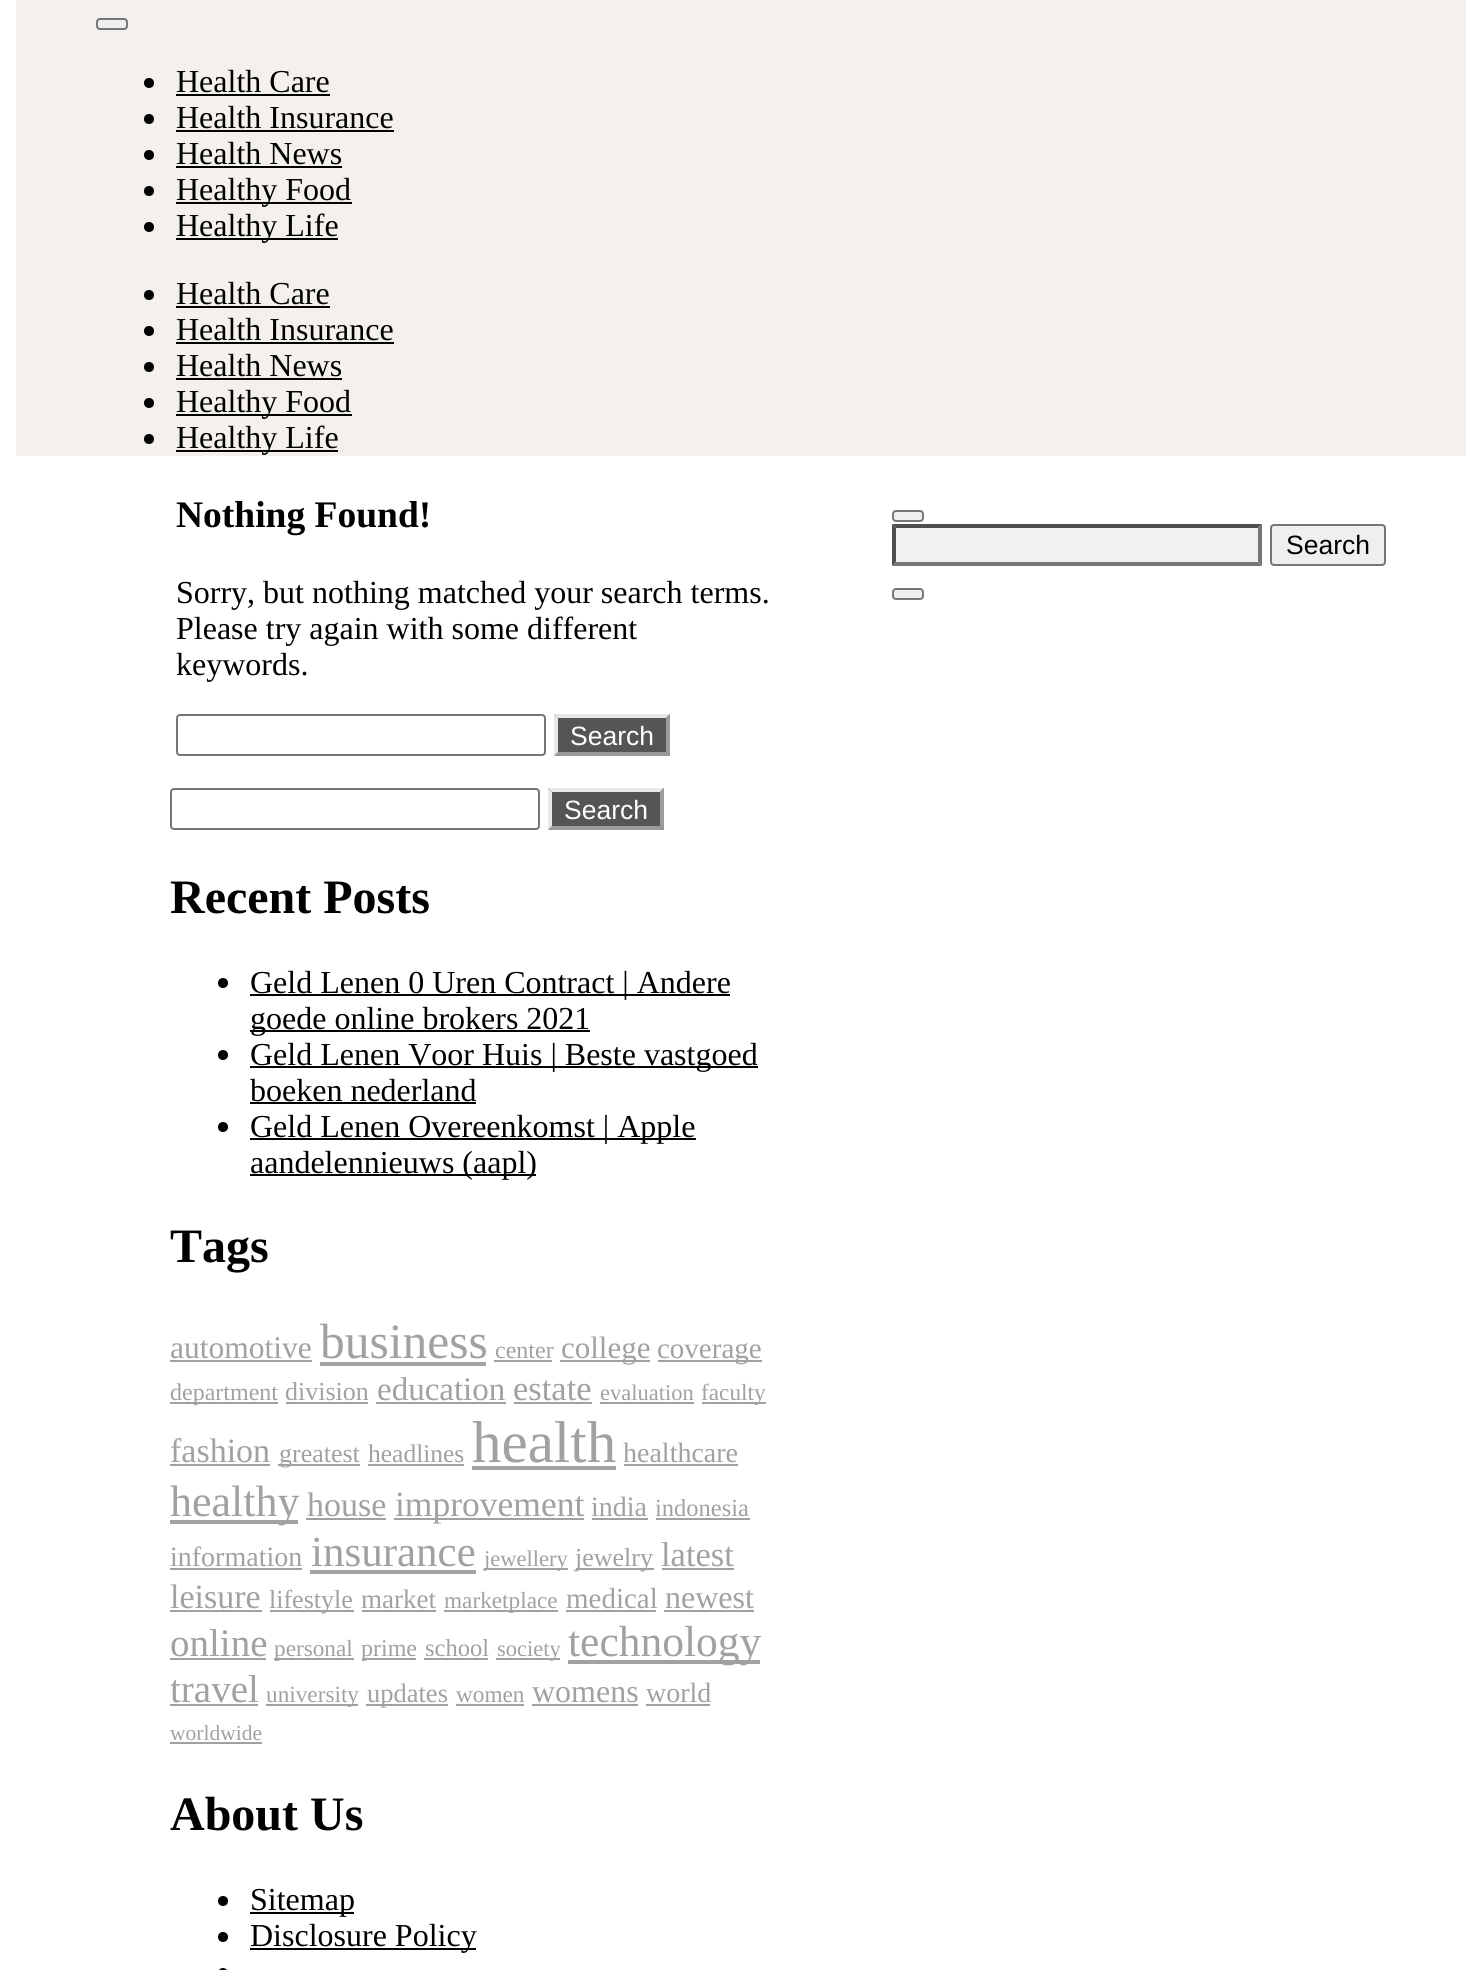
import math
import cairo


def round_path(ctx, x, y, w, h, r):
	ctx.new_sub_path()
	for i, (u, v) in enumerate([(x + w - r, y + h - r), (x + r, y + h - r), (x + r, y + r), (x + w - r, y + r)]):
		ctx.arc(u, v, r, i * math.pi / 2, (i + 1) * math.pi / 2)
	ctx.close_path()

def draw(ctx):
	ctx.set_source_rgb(1, 1, 1)
	ctx.paint()
	ctx.set_source_rgb(0.957, 0.945, 0.925)
	ctx.rectangle(16, 0, 1450, 456)
	ctx.fill()
	ctx.set_source_rgb(0.937, 0.937, 0.937)
	round_path(ctx, 97, 19, 30, 10, 3)
	ctx.fill_preserve()
	ctx.set_source_rgb(0.463, 0.463, 0.463)
	ctx.stroke()
	ctx.set_source_rgb(0, 0, 0)
	ctx.arc(149, 83, 5, 0, 2 * math.pi)
	ctx.fill()
	ctx.select_font_face('Liberation Serif')
	ctx.set_font_size(32)
	ctx.move_to(176, 92)
	ctx.show_text('Health Care')
	ctx.rectangle(176, 94, 154, 2)
	ctx.fill()
	ctx.arc(149, 119, 5, 0, 2 * math.pi)
	ctx.fill()
	ctx.move_to(176, 128)
	ctx.show_text('Health Insurance')
	ctx.rectangle(176, 130, 218, 2)
	ctx.fill()
	ctx.arc(149, 155, 5, 0, 2 * math.pi)
	ctx.fill()
	ctx.move_to(176, 164)
	ctx.show_text('Health News')
	ctx.rectangle(176, 166, 166, 2)
	ctx.fill()
	ctx.arc(149, 191, 5, 0, 2 * math.pi)
	ctx.fill()
	ctx.rectangle(176, 202, 176, 2)
	ctx.fill()
	ctx.move_to(176, 200)
	ctx.show_text('Healthy Food')
	ctx.new_path()
	ctx.arc(149, 227, 5, 0, 2 * math.pi)
	ctx.fill()
	ctx.rectangle(176, 238, 162, 2)
	ctx.fill()
	ctx.move_to(176, 236)
	ctx.show_text('Healthy Life')
	ctx.new_path()
	ctx.arc(149, 295, 5, 0, 2 * math.pi)
	ctx.fill()
	ctx.move_to(176, 304)
	ctx.show_text('Health Care')
	ctx.rectangle(176, 306, 154, 2)
	ctx.fill()
	ctx.arc(149, 331, 5, 0, 2 * math.pi)
	ctx.fill()
	ctx.move_to(176, 340)
	ctx.show_text('Health Insurance')
	ctx.rectangle(176, 342, 218, 2)
	ctx.fill()
	ctx.arc(149, 367, 5, 0, 2 * math.pi)
	ctx.fill()
	ctx.move_to(176, 376)
	ctx.show_text('Health News')
	ctx.rectangle(176, 378, 166, 2)
	ctx.fill()
	ctx.arc(149, 403, 5, 0, 2 * math.pi)
	ctx.fill()
	ctx.rectangle(176, 414, 176, 2)
	ctx.fill()
	ctx.move_to(176, 412)
	ctx.show_text('Healthy Food')
	ctx.new_path()
	ctx.arc(149, 439, 5, 0, 2 * math.pi)
	ctx.fill()
	ctx.rectangle(176, 450, 162, 2)
	ctx.fill()
	ctx.move_to(176, 448)
	ctx.show_text('Healthy Life')
	ctx.set_source_rgb(0.937, 0.937, 0.937)
	round_path(ctx, 893, 511, 30, 10, 3)
	ctx.fill_preserve()
	ctx.set_source_rgb(0.463, 0.463, 0.463)
	ctx.stroke()
	ctx.set_source_rgb(0.945, 0.945, 0.945)
	ctx.rectangle(892, 524, 370, 42)
	ctx.fill()
	ctx.set_source_rgb(0.31, 0.31, 0.31)
	ctx.new_path()
	ctx.move_to(892, 524)
	ctx.line_to(1262, 524)
	ctx.line_to(1258, 528)
	ctx.line_to(896, 528)
	ctx.close_path()
	ctx.fill()
	ctx.set_source_rgb(0.463, 0.463, 0.463)
	ctx.new_path()
	ctx.move_to(1262, 524)
	ctx.line_to(1262, 566)
	ctx.line_to(1258, 562)
	ctx.line_to(1258, 528)
	ctx.close_path()
	ctx.fill()
	ctx.new_path()
	ctx.move_to(1262, 566)
	ctx.line_to(892, 566)
	ctx.line_to(896, 562)
	ctx.line_to(1258, 562)
	ctx.close_path()
	ctx.fill()
	ctx.set_source_rgb(0.31, 0.31, 0.31)
	ctx.new_path()
	ctx.move_to(892, 566)
	ctx.line_to(892, 524)
	ctx.line_to(896, 528)
	ctx.line_to(896, 562)
	ctx.close_path()
	ctx.fill()
	ctx.set_source_rgb(0.937, 0.937, 0.937)
	round_path(ctx, 1271, 525, 114, 40, 3)
	ctx.fill_preserve()
	ctx.set_source_rgb(0.463, 0.463, 0.463)
	ctx.stroke()
	ctx.select_font_face('Liberation Sans')
	ctx.set_font_size(26.5)
	ctx.set_source_rgb(0, 0, 0)
	ctx.move_to(1286, 554)
	ctx.show_text('Search')
	ctx.set_source_rgb(0.937, 0.937, 0.937)
	round_path(ctx, 893, 589, 30, 10, 3)
	ctx.fill_preserve()
	ctx.set_source_rgb(0.463, 0.463, 0.463)
	ctx.stroke()
	ctx.select_font_face('Liberation Serif', cairo.FONT_SLANT_NORMAL, cairo.FONT_WEIGHT_BOLD)
	ctx.set_font_size(37.5)
	ctx.set_source_rgb(0, 0, 0)
	ctx.move_to(176, 527)
	ctx.show_text('Nothing Found!')
	ctx.select_font_face('Liberation Serif')
	ctx.set_font_size(32)
	for x, y, s in [
		(176, 603, 'Sorry, but nothing matched your search terms.'),
		(176, 639, 'Please try again with some different'),
		(176, 675, 'keywords.'),
	]:
		ctx.move_to(x, y)
		ctx.show_text(s)
	round_path(ctx, 177, 715, 368, 40, 3)
	ctx.set_source_rgb(0.463, 0.463, 0.463)
	ctx.stroke()
	ctx.set_source_rgb(0.333, 0.333, 0.333)
	ctx.rectangle(554, 714, 116, 42)
	ctx.fill()
	ctx.set_source_rgb(0.91, 0.91, 0.91)
	ctx.new_path()
	ctx.move_to(554, 714)
	ctx.line_to(670, 714)
	ctx.line_to(666, 718)
	ctx.line_to(558, 718)
	ctx.close_path()
	ctx.fill()
	ctx.set_source_rgb(0.608, 0.608, 0.608)
	ctx.new_path()
	ctx.move_to(670, 714)
	ctx.line_to(670, 756)
	ctx.line_to(666, 752)
	ctx.line_to(666, 718)
	ctx.close_path()
	ctx.fill()
	ctx.new_path()
	ctx.move_to(670, 756)
	ctx.line_to(554, 756)
	ctx.line_to(558, 752)
	ctx.line_to(666, 752)
	ctx.close_path()
	ctx.fill()
	ctx.set_source_rgb(0.91, 0.91, 0.91)
	ctx.new_path()
	ctx.move_to(554, 756)
	ctx.line_to(554, 714)
	ctx.line_to(558, 718)
	ctx.line_to(558, 752)
	ctx.close_path()
	ctx.fill()
	ctx.select_font_face('Liberation Sans')
	ctx.set_font_size(26.5)
	ctx.set_source_rgb(1, 1, 1)
	ctx.move_to(570, 745)
	ctx.show_text('Search')
	round_path(ctx, 171, 789, 368, 40, 3)
	ctx.set_source_rgb(0.463, 0.463, 0.463)
	ctx.stroke()
	ctx.set_source_rgb(0.333, 0.333, 0.333)
	ctx.rectangle(548, 788, 116, 42)
	ctx.fill()
	ctx.set_source_rgb(0.91, 0.91, 0.91)
	ctx.new_path()
	ctx.move_to(548, 788)
	ctx.line_to(664, 788)
	ctx.line_to(660, 792)
	ctx.line_to(552, 792)
	ctx.close_path()
	ctx.fill()
	ctx.set_source_rgb(0.608, 0.608, 0.608)
	ctx.new_path()
	ctx.move_to(664, 788)
	ctx.line_to(664, 830)
	ctx.line_to(660, 826)
	ctx.line_to(660, 792)
	ctx.close_path()
	ctx.fill()
	ctx.new_path()
	ctx.move_to(664, 830)
	ctx.line_to(548, 830)
	ctx.line_to(552, 826)
	ctx.line_to(660, 826)
	ctx.close_path()
	ctx.fill()
	ctx.set_source_rgb(0.91, 0.91, 0.91)
	ctx.new_path()
	ctx.move_to(548, 830)
	ctx.line_to(548, 788)
	ctx.line_to(552, 792)
	ctx.line_to(552, 826)
	ctx.close_path()
	ctx.fill()
	ctx.set_source_rgb(1, 1, 1)
	ctx.move_to(564, 819)
	ctx.show_text('Search')
	ctx.select_font_face('Liberation Serif', cairo.FONT_SLANT_NORMAL, cairo.FONT_WEIGHT_BOLD)
	ctx.set_font_size(48)
	ctx.set_source_rgb(0, 0, 0)
	ctx.move_to(170, 913)
	ctx.show_text('Recent Posts')
	ctx.set_source_rgb(0.004, 0.004, 0.004)
	ctx.new_path()
	ctx.arc(223, 983, 5, 0, 2 * math.pi)
	ctx.fill()
	ctx.rectangle(250, 994, 480, 2)
	ctx.fill()
	ctx.select_font_face('Liberation Serif')
	ctx.set_font_size(32)
	ctx.set_source_rgb(0, 0, 0)
	ctx.move_to(250, 993)
	ctx.show_text('Geld Lenen 0 Uren Contract | Andere')
	ctx.set_source_rgb(0.004, 0.004, 0.004)
	ctx.rectangle(250, 1030, 340, 2)
	ctx.fill()
	ctx.set_source_rgb(0, 0, 0)
	ctx.move_to(250, 1029)
	ctx.show_text('goede online brokers 2021')
	ctx.set_source_rgb(0.004, 0.004, 0.004)
	ctx.new_path()
	ctx.arc(223, 1055, 5, 0, 2 * math.pi)
	ctx.fill()
	ctx.rectangle(250, 1066, 508, 2)
	ctx.fill()
	ctx.set_source_rgb(0, 0, 0)
	ctx.move_to(250, 1065)
	ctx.show_text('Geld Lenen Voor Huis | Beste vastgoed')
	ctx.move_to(250, 1101)
	ctx.show_text('boeken nederland')
	ctx.set_source_rgb(0.004, 0.004, 0.004)
	ctx.rectangle(250, 1102, 226, 2)
	ctx.fill()
	ctx.arc(223, 1127, 5, 0, 2 * math.pi)
	ctx.fill()
	ctx.rectangle(250, 1138, 446, 2)
	ctx.fill()
	ctx.set_source_rgb(0, 0, 0)
	ctx.move_to(250, 1137)
	ctx.show_text('Geld Lenen Overeenkomst | Apple')
	ctx.set_source_rgb(0.004, 0.004, 0.004)
	ctx.rectangle(250, 1174, 286, 2)
	ctx.fill()
	ctx.set_source_rgb(0, 0, 0)
	ctx.move_to(250, 1173)
	ctx.show_text('aandelennieuws (aapl)')
	ctx.select_font_face('Liberation Serif', cairo.FONT_SLANT_NORMAL, cairo.FONT_WEIGHT_BOLD)
	ctx.set_font_size(48)
	ctx.move_to(170, 1262)
	ctx.show_text('Tags')
	ctx.select_font_face('Liberation Serif')
	ctx.set_font_size(31.5)
	ctx.set_source_rgb(0.631, 0.631, 0.631)
	ctx.move_to(170, 1358)
	ctx.show_text('automotive')
	ctx.rectangle(170, 1360, 142, 2)
	ctx.fill()
	ctx.set_font_size(49.5)
	ctx.move_to(320, 1358)
	ctx.show_text('business')
	ctx.rectangle(320, 1362, 166, 4)
	ctx.fill()
	ctx.set_font_size(24)
	ctx.move_to(495, 1358)
	ctx.show_text('center')
	ctx.rectangle(494, 1360, 58, 2)
	ctx.fill()
	ctx.rectangle(560, 1360, 90, 2)
	ctx.fill()
	ctx.set_font_size(31)
	ctx.move_to(561, 1358)
	ctx.show_text('college')
	ctx.rectangle(658, 1360, 104, 2)
	ctx.fill()
	ctx.set_font_size(29)
	ctx.move_to(657, 1358)
	ctx.show_text('coverage')
	ctx.rectangle(170, 1402, 108, 2)
	ctx.fill()
	ctx.set_font_size(24)
	ctx.move_to(170, 1400)
	ctx.show_text('department')
	ctx.set_font_size(26)
	ctx.move_to(285, 1400)
	ctx.show_text('division')
	ctx.rectangle(286, 1402, 82, 2)
	ctx.fill()
	ctx.set_font_size(33)
	ctx.move_to(377, 1400)
	ctx.show_text('education')
	ctx.rectangle(376, 1402, 130, 2)
	ctx.fill()
	ctx.set_font_size(34.5)
	ctx.move_to(513, 1400)
	ctx.show_text('estate')
	ctx.rectangle(514, 1402, 78, 2)
	ctx.fill()
	ctx.set_font_size(22.5)
	ctx.move_to(600, 1400)
	ctx.show_text('evaluation')
	ctx.rectangle(600, 1402, 94, 2)
	ctx.fill()
	ctx.rectangle(702, 1402, 64, 2)
	ctx.fill()
	ctx.set_font_size(23.25)
	ctx.move_to(701, 1400)
	ctx.show_text('faculty')
	ctx.set_font_size(34)
	ctx.move_to(170, 1462)
	ctx.show_text('fashion')
	ctx.rectangle(170, 1464, 100, 2)
	ctx.fill()
	ctx.rectangle(278, 1464, 82, 2)
	ctx.fill()
	ctx.set_font_size(26)
	ctx.move_to(279, 1462)
	ctx.show_text('greatest')
	ctx.set_font_size(25.5)
	ctx.move_to(368, 1462)
	ctx.show_text('headlines')
	ctx.rectangle(368, 1464, 96, 2)
	ctx.fill()
	ctx.set_font_size(59)
	ctx.move_to(472, 1462)
	ctx.show_text('health')
	ctx.rectangle(472, 1466, 144, 4)
	ctx.fill()
	ctx.set_font_size(28)
	ctx.move_to(623, 1462)
	ctx.show_text('healthcare')
	ctx.rectangle(624, 1464, 114, 2)
	ctx.fill()
	ctx.rectangle(170, 1520, 128, 4)
	ctx.fill()
	ctx.set_font_size(44)
	ctx.move_to(170, 1516)
	ctx.show_text('healthy')
	ctx.set_font_size(34)
	ctx.move_to(307, 1516)
	ctx.show_text('house')
	ctx.rectangle(306, 1518, 80, 2)
	ctx.fill()
	ctx.rectangle(394, 1518, 190, 2)
	ctx.fill()
	ctx.set_font_size(35.5)
	ctx.move_to(395, 1516)
	ctx.show_text('improvement')
	ctx.set_font_size(28)
	ctx.move_to(591, 1516)
	ctx.show_text('india')
	ctx.rectangle(592, 1518, 56, 2)
	ctx.fill()
	ctx.set_font_size(24.5)
	ctx.move_to(655, 1516)
	ctx.show_text('indonesia')
	ctx.rectangle(656, 1518, 94, 2)
	ctx.fill()
	ctx.set_font_size(28)
	ctx.move_to(170, 1566)
	ctx.show_text('information')
	ctx.rectangle(170, 1568, 132, 2)
	ctx.fill()
	ctx.set_font_size(43)
	ctx.move_to(311, 1566)
	ctx.show_text('insurance')
	ctx.rectangle(310, 1570, 166, 4)
	ctx.fill()
	ctx.rectangle(484, 1568, 84, 2)
	ctx.fill()
	ctx.set_font_size(22.5)
	ctx.move_to(484, 1566)
	ctx.show_text('jewellery')
	ctx.rectangle(576, 1568, 78, 2)
	ctx.fill()
	ctx.set_font_size(26)
	ctx.move_to(575, 1566)
	ctx.show_text('jewelry')
	ctx.set_font_size(34.5)
	ctx.move_to(661, 1566)
	ctx.show_text('latest')
	ctx.rectangle(662, 1568, 72, 2)
	ctx.fill()
	ctx.set_font_size(34)
	ctx.move_to(170, 1608)
	ctx.show_text('leisure')
	ctx.rectangle(170, 1610, 92, 2)
	ctx.fill()
	ctx.rectangle(270, 1610, 84, 2)
	ctx.fill()
	ctx.set_font_size(26)
	ctx.move_to(269, 1608)
	ctx.show_text('lifestyle')
	ctx.set_font_size(27)
	ctx.move_to(361, 1608)
	ctx.show_text('market')
	ctx.rectangle(362, 1610, 74, 2)
	ctx.fill()
	ctx.rectangle(444, 1610, 114, 2)
	ctx.fill()
	ctx.set_font_size(23.25)
	ctx.move_to(444, 1608)
	ctx.show_text('marketplace')
	ctx.set_font_size(29)
	ctx.move_to(566, 1608)
	ctx.show_text('medical')
	ctx.rectangle(566, 1610, 90, 2)
	ctx.fill()
	ctx.set_font_size(32)
	ctx.move_to(665, 1608)
	ctx.show_text('newest')
	ctx.rectangle(664, 1610, 90, 2)
	ctx.fill()
	ctx.set_font_size(39)
	ctx.move_to(170, 1656)
	ctx.show_text('online')
	ctx.rectangle(170, 1658, 96, 2)
	ctx.fill()
	ctx.rectangle(274, 1658, 80, 2)
	ctx.fill()
	ctx.set_font_size(23.25)
	ctx.move_to(274, 1656)
	ctx.show_text('personal')
	ctx.rectangle(362, 1658, 54, 2)
	ctx.fill()
	ctx.set_font_size(24)
	ctx.move_to(361, 1656)
	ctx.show_text('prime')
	ctx.set_font_size(24.5)
	ctx.move_to(425, 1656)
	ctx.show_text('school')
	ctx.rectangle(424, 1658, 64, 2)
	ctx.fill()
	ctx.rectangle(496, 1658, 64, 2)
	ctx.fill()
	ctx.set_font_size(22.5)
	ctx.move_to(497, 1656)
	ctx.show_text('society')
	ctx.rectangle(568, 1660, 192, 4)
	ctx.fill()
	ctx.set_font_size(43.5)
	ctx.move_to(568, 1656)
	ctx.show_text('technology')
	ctx.set_font_size(39)
	ctx.move_to(170, 1702)
	ctx.show_text('travel')
	ctx.rectangle(170, 1704, 88, 2)
	ctx.fill()
	ctx.rectangle(266, 1704, 92, 2)
	ctx.fill()
	ctx.set_font_size(23.25)
	ctx.move_to(266, 1702)
	ctx.show_text('university')
	ctx.rectangle(366, 1704, 82, 2)
	ctx.fill()
	ctx.set_font_size(26.5)
	ctx.move_to(367, 1702)
	ctx.show_text('updates')
	ctx.set_font_size(23.25)
	ctx.move_to(456, 1702)
	ctx.show_text('women')
	ctx.rectangle(456, 1704, 68, 2)
	ctx.fill()
	ctx.set_font_size(32)
	ctx.move_to(532, 1702)
	ctx.show_text('womens')
	ctx.rectangle(532, 1704, 106, 2)
	ctx.fill()
	ctx.set_font_size(28)
	ctx.move_to(646, 1702)
	ctx.show_text('world')
	ctx.rectangle(646, 1704, 64, 2)
	ctx.fill()
	ctx.set_font_size(21.5)
	ctx.move_to(170, 1740)
	ctx.show_text('worldwide')
	ctx.rectangle(170, 1742, 92, 2)
	ctx.fill()
	ctx.select_font_face('Liberation Serif', cairo.FONT_SLANT_NORMAL, cairo.FONT_WEIGHT_BOLD)
	ctx.set_font_size(48)
	ctx.set_source_rgb(0, 0, 0)
	ctx.move_to(170, 1830)
	ctx.show_text('About Us')
	ctx.set_source_rgb(0.004, 0.004, 0.004)
	ctx.new_path()
	ctx.arc(223, 1901, 5, 0, 2 * math.pi)
	ctx.fill()
	ctx.rectangle(250, 1912, 104, 2)
	ctx.fill()
	ctx.select_font_face('Liberation Serif')
	ctx.set_font_size(32)
	ctx.set_source_rgb(0, 0, 0)
	ctx.move_to(250, 1910)
	ctx.show_text('Sitemap')
	ctx.set_source_rgb(0.004, 0.004, 0.004)
	ctx.new_path()
	ctx.arc(223, 1937, 5, 0, 2 * math.pi)
	ctx.fill()
	ctx.rectangle(250, 1948, 226, 2)
	ctx.fill()
	ctx.set_source_rgb(0, 0, 0)
	ctx.move_to(250, 1946)
	ctx.show_text('Disclosure Policy')
	ctx.set_source_rgb(0.004, 0.004, 0.004)
	round_path(ctx, 218, 1968, 10, 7, 5)
	ctx.fill()


surface = cairo.ImageSurface(cairo.FORMAT_RGB24, 1481, 1970)
ctx = cairo.Context(surface)
options = cairo.FontOptions()
options.set_hint_metrics(cairo.HINT_METRICS_OFF)
options.set_hint_style(cairo.HINT_STYLE_NONE)
ctx.set_font_options(options)
ctx.set_miter_limit(4)
draw(ctx)
surface.write_to_png('image.png')
